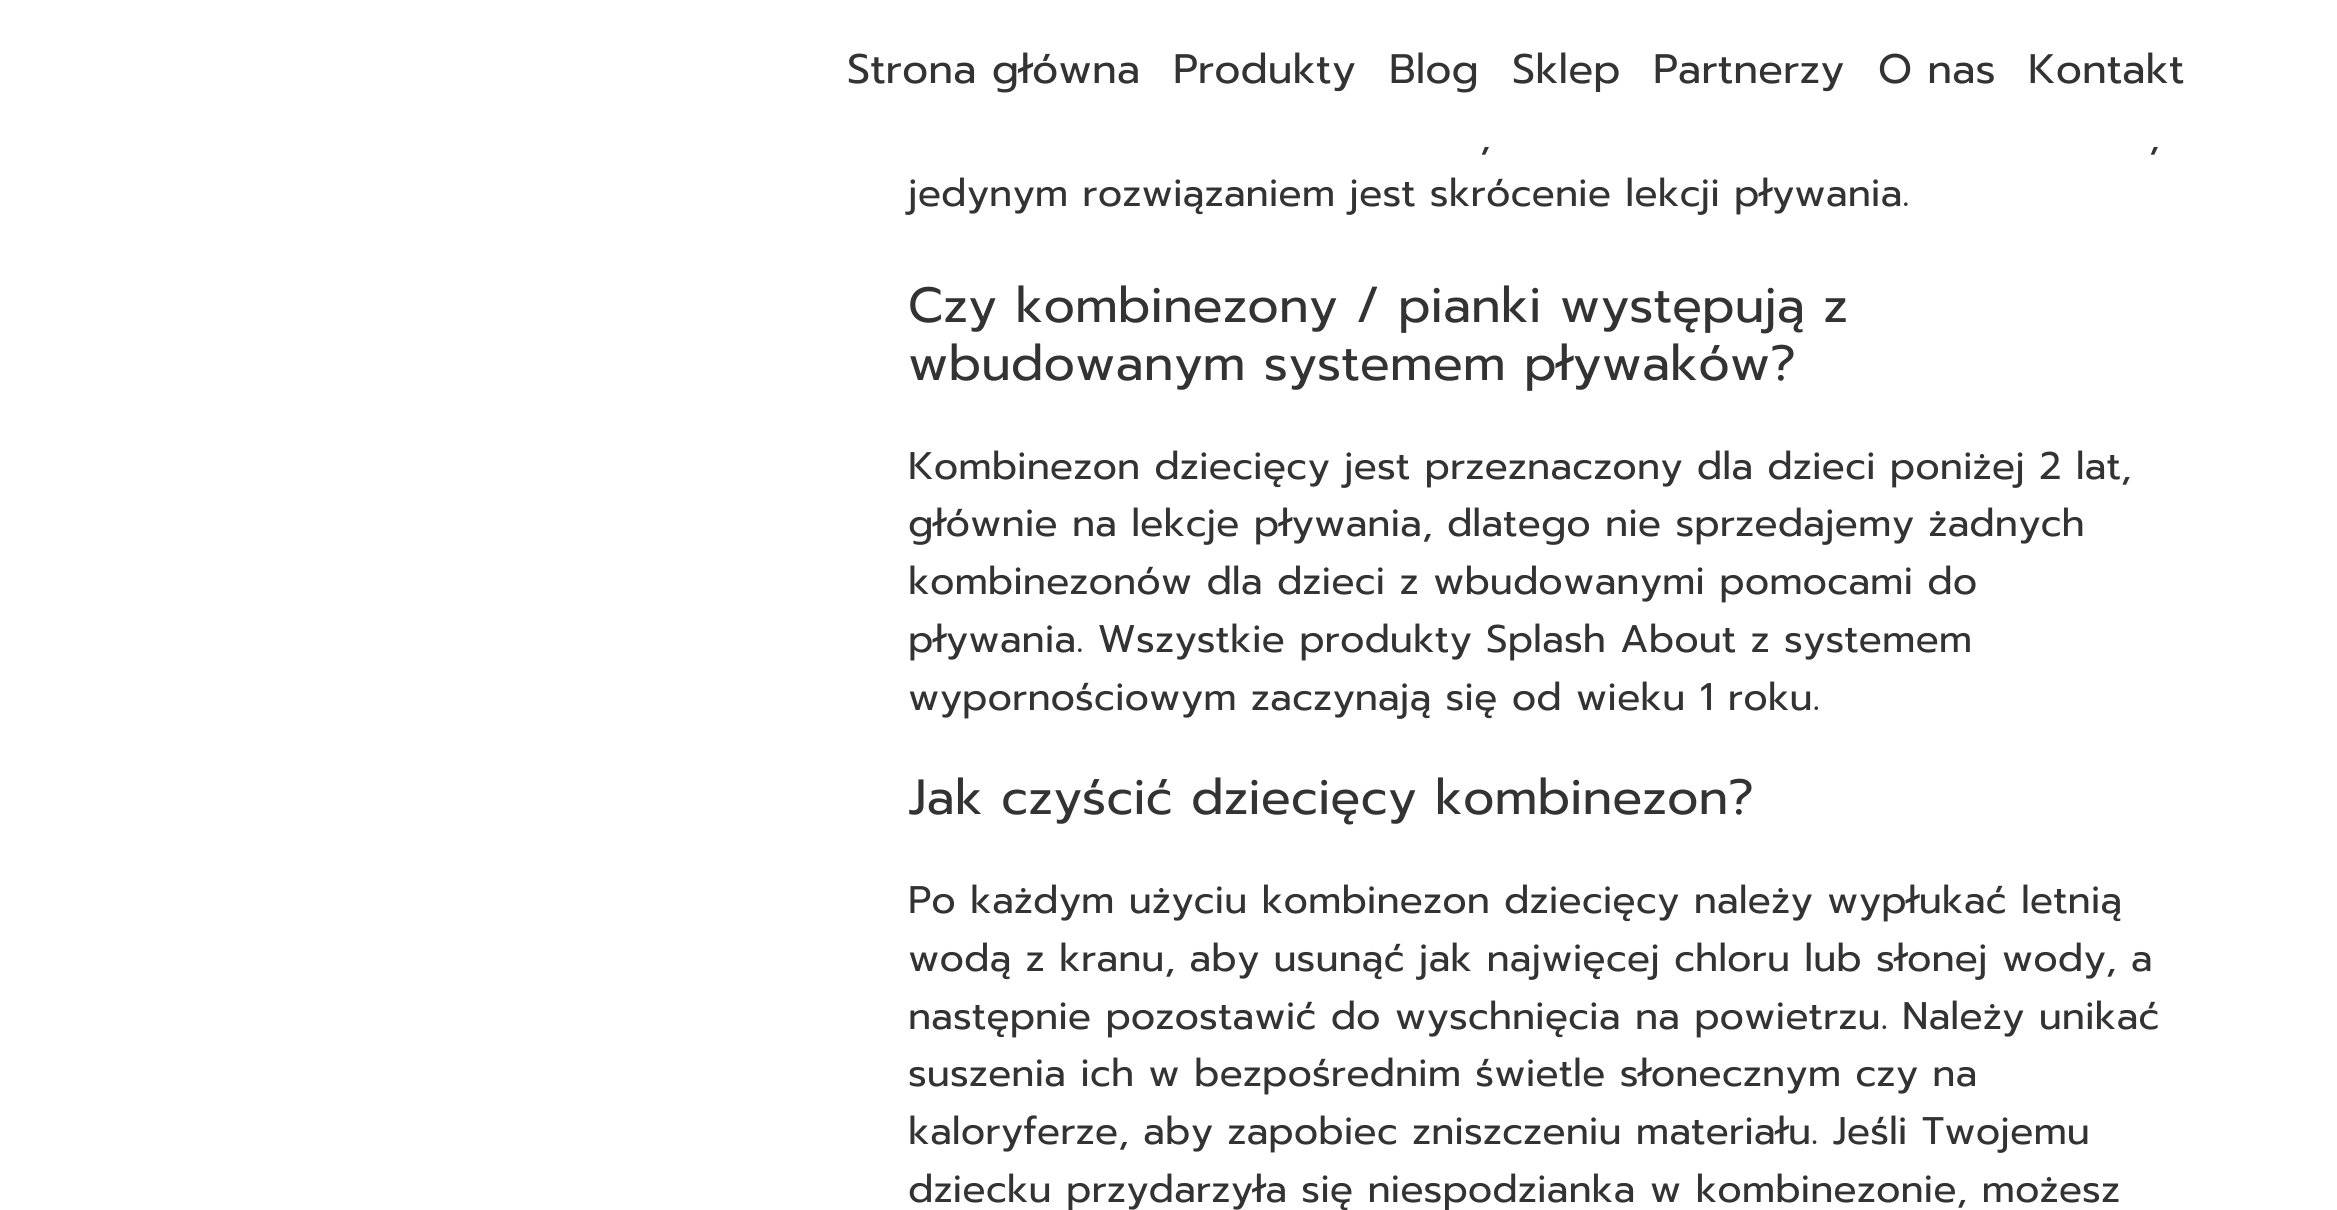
import math
import cairo


def draw(ctx):
	ctx.set_source_rgb(1, 1, 1)
	ctx.paint()
	ctx.select_font_face('Prompt')
	ctx.set_font_size(41.25)
	ctx.set_source_rgb(0.2, 0.2, 0.2)
	for x, y, s in [
		(847, 83, 'Strona główna'),
		(1173, 83, 'Produkty'),
		(1389, 83, 'Blog'),
		(1512, 83, 'Sklep'),
		(1653, 83, 'Partnerzy'),
		(1878, 83, 'O nas'),
		(2028, 83, 'Kontakt'),
	]:
		ctx.move_to(x, y)
		ctx.show_text(s)
	ctx.set_font_size(38.5)
	for x, y, s in [
		(1480, 149, ','),
		(2149, 149, ','),
		(908, 206, 'jedynym rozwiązaniem jest skrócenie lekcji pływania.'),
	]:
		ctx.move_to(x, y)
		ctx.show_text(s)
	ctx.set_font_size(49.5)
	ctx.move_to(908, 322)
	ctx.show_text('Czy kombinezony / pianki występują z')
	ctx.move_to(908, 380)
	ctx.show_text('wbudowanym systemem pływaków?')
	ctx.set_font_size(38.5)
	for x, y, s in [
		(908, 479, 'Kombinezon dziecięcy jest przeznaczony dla dzieci poniżej 2 lat,'),
		(908, 536, 'głównie na lekcje pływania, dlatego nie sprzedajemy żadnych'),
		(908, 594, 'kombinezonów dla dzieci z wbudowanymi pomocami do'),
		(908, 652, 'pływania. Wszystkie produkty Splash About z systemem'),
		(908, 710, 'wypornościowym zaczynają się od wieku 1 roku.'),
	]:
		ctx.move_to(x, y)
		ctx.show_text(s)
	ctx.set_font_size(49.5)
	ctx.move_to(908, 814)
	ctx.show_text('Jak czyścić dziecięcy kombinezon?')
	ctx.set_font_size(38.5)
	for x, y, s in [
		(908, 913, 'Po każdym użyciu kombinezon dziecięcy należy wypłukać letnią'),
		(908, 971, 'wodą z kranu, aby usunąć jak najwięcej chloru lub słonej wody, a'),
		(908, 1029, 'następnie pozostawić do wyschnięcia na powietrzu. Należy unikać'),
		(908, 1086, 'suszenia ich w bezpośrednim świetle słonecznym czy na'),
		(908, 1144, 'kaloryferze, aby zapobiec zniszczeniu materiału. Jeśli Twojemu'),
		(908, 1202, 'dziecku przydarzyła się niespodzianka w kombinezonie, możesz'),
	]:
		ctx.move_to(x, y)
		ctx.show_text(s)


surface = cairo.ImageSurface(cairo.FORMAT_RGB24, 2337, 1210)
ctx = cairo.Context(surface)
options = cairo.FontOptions()
options.set_hint_metrics(cairo.HINT_METRICS_OFF)
options.set_hint_style(cairo.HINT_STYLE_NONE)
ctx.set_font_options(options)
ctx.set_miter_limit(4)
draw(ctx)
surface.write_to_png('image.png')
